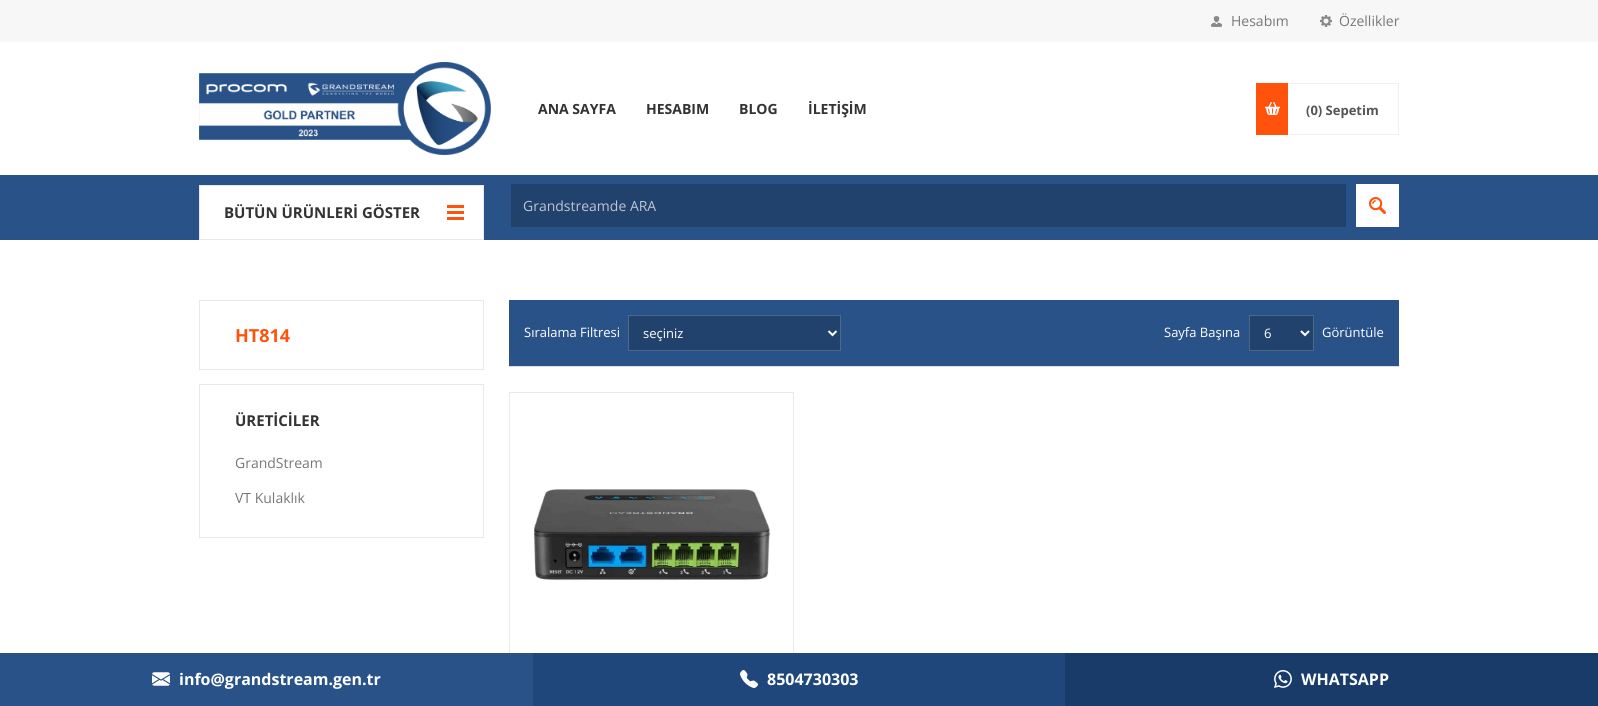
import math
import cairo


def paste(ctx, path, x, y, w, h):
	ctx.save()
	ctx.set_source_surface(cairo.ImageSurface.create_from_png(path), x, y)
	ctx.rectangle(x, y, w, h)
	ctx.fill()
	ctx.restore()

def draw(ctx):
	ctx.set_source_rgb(1, 1, 1)
	ctx.paint()
	ctx.set_source_rgb(0.965, 0.965, 0.965)
	ctx.rectangle(0, 0, 1598, 42)
	ctx.fill()
	paste(ctx, 'media/1.png', 1211, 16, 11, 11)
	ctx.select_font_face('Open Sans')
	ctx.set_font_size(14)
	ctx.set_source_rgb(0.467, 0.467, 0.467)
	ctx.move_to(1231, 26)
	ctx.show_text('Hesabım')
	paste(ctx, 'media/2.png', 1320, 15, 12, 12)
	ctx.move_to(1339, 26)
	ctx.show_text('Özellikler')
	paste(ctx, 'media/3.png', 199, 62, 292, 93)
	ctx.select_font_face('Open Sans', cairo.FONT_SLANT_NORMAL, cairo.FONT_WEIGHT_BOLD)
	ctx.set_source_rgb(0.2, 0.2, 0.2)
	for x, y, s in [
		(538, 114, 'ANA SAYFA'),
		(646, 114, 'HESABIM'),
		(739, 114, 'BLOG'),
		(808, 114, 'İLETİŞİM'),
	]:
		ctx.move_to(x, y)
		ctx.show_text(s)
	ctx.rectangle(1287.5, 83.5, 111, 51)
	ctx.set_source_rgb(0.941, 0.941, 0.941)
	ctx.set_line_width(1)
	ctx.stroke()
	ctx.set_source_rgb(1, 0.325, 0.051)
	ctx.rectangle(1256, 83, 32, 52)
	ctx.fill()
	paste(ctx, 'media/4.png', 1265, 102, 15, 13)
	ctx.set_font_size(13)
	ctx.set_source_rgb(0.333, 0.333, 0.333)
	ctx.move_to(1306, 115)
	ctx.show_text('(0) Sepetim')
	ctx.set_source_rgb(0.161, 0.322, 0.533)
	ctx.rectangle(0, 175, 1598, 65)
	ctx.fill()
	ctx.set_source_rgb(1, 1, 1)
	ctx.rectangle(199.5, 185.5, 284, 54)
	ctx.fill_preserve()
	ctx.set_source_rgb(0.914, 0.914, 0.914)
	ctx.stroke()
	ctx.set_font_size(15)
	ctx.set_source_rgb(0.2, 0.2, 0.2)
	ctx.move_to(224, 218)
	ctx.show_text('BÜTÜN ÜRÜNLERİ GÖSTER')
	ctx.set_source_rgb(1, 0.325, 0.051)
	ctx.rectangle(447, 205, 17, 15)
	ctx.fill()
	paste(ctx, 'media/5.png', 447, 208, 17, 9)
	ctx.set_source_rgb(0.129, 0.259, 0.427)
	ctx.rectangle(511, 184, 835, 43)
	ctx.fill()
	ctx.select_font_face('Open Sans')
	ctx.set_font_size(14)
	ctx.set_source_rgb(0.737, 0.776, 0.827)
	ctx.move_to(523, 211)
	ctx.show_text('Grandstreamde ARA')
	ctx.set_source_rgb(1, 0.325, 0.051)
	ctx.rectangle(1369, 197, 17, 17)
	ctx.fill()
	paste(ctx, 'media/6.png', 1356, 184, 43, 43)
	ctx.rectangle(199.5, 300.5, 284, 69)
	ctx.set_source_rgb(0.914, 0.914, 0.914)
	ctx.stroke()
	ctx.select_font_face('Open Sans', cairo.FONT_SLANT_NORMAL, cairo.FONT_WEIGHT_BOLD)
	ctx.set_font_size(18)
	ctx.set_source_rgb(1, 0.325, 0.051)
	ctx.move_to(235, 342)
	ctx.show_text('HT814')
	ctx.rectangle(199.5, 384.5, 284, 153)
	ctx.set_source_rgb(0.914, 0.914, 0.914)
	ctx.stroke()
	ctx.set_font_size(15)
	ctx.set_source_rgb(0.2, 0.2, 0.2)
	ctx.move_to(235, 426)
	ctx.show_text('ÜRETİCİLER')
	ctx.select_font_face('Open Sans')
	ctx.set_font_size(14)
	ctx.set_source_rgb(0.467, 0.467, 0.467)
	ctx.move_to(235, 468)
	ctx.show_text('GrandStream')
	ctx.move_to(235, 503)
	ctx.show_text('VT Kulaklık')
	ctx.set_source_rgb(0.161, 0.322, 0.533)
	ctx.rectangle(509, 300, 890, 66)
	ctx.fill()
	ctx.set_source_rgb(0.867, 0.867, 0.867)
	ctx.rectangle(509, 366, 890, 1)
	ctx.fill()
	ctx.set_font_size(13)
	ctx.set_source_rgb(1, 1, 1)
	ctx.move_to(524, 337)
	ctx.show_text('Sıralama Filtresi')
	ctx.set_source_rgb(0.129, 0.259, 0.427)
	ctx.rectangle(628.5, 315.5, 212, 35)
	ctx.fill_preserve()
	ctx.set_source_rgb(0.302, 0.408, 0.541)
	ctx.stroke()
	ctx.new_path()
	ctx.move_to(828.5, 331)
	ctx.line_to(832.5, 335)
	ctx.line_to(836.5, 331)
	ctx.set_source_rgb(1, 1, 1)
	ctx.set_line_width(2)
	ctx.stroke()
	ctx.move_to(643, 338)
	ctx.show_text('seçiniz')
	ctx.move_to(1164, 337)
	ctx.show_text('Sayfa Başına')
	ctx.set_source_rgb(0.129, 0.259, 0.427)
	ctx.rectangle(1249.5, 315.5, 64, 35)
	ctx.fill_preserve()
	ctx.set_source_rgb(0.302, 0.408, 0.541)
	ctx.set_line_width(1)
	ctx.stroke()
	ctx.new_path()
	ctx.move_to(1301, 331)
	ctx.line_to(1305, 335)
	ctx.line_to(1309, 331)
	ctx.set_source_rgb(1, 1, 1)
	ctx.set_line_width(2)
	ctx.stroke()
	ctx.move_to(1264, 338)
	ctx.show_text('6')
	ctx.move_to(1322, 337)
	ctx.show_text('Görüntüle')
	ctx.rectangle(509.5, 392.5, 284, 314)
	ctx.set_source_rgb(0.914, 0.914, 0.914)
	ctx.set_line_width(1)
	ctx.stroke()
	paste(ctx, 'media/7.png', 533, 489, 237, 92)
	ctx.set_source_rgb(0.161, 0.322, 0.533)
	ctx.rectangle(0, 653, 533, 53)
	ctx.fill()
	paste(ctx, 'media/8.png', 152, 672, 18, 14)
	ctx.select_font_face('Open Sans', cairo.FONT_SLANT_NORMAL, cairo.FONT_WEIGHT_BOLD)
	ctx.set_font_size(16)
	ctx.set_source_rgb(1, 1, 1)
	ctx.move_to(179, 685)
	ctx.show_text('info@grandstream.gen.tr')
	ctx.set_source_rgb(0.125, 0.278, 0.486)
	ctx.rectangle(533, 653, 532, 53)
	ctx.fill()
	paste(ctx, 'media/9.png', 740, 670, 18, 18)
	ctx.set_source_rgb(1, 1, 1)
	ctx.move_to(767, 685)
	ctx.show_text('8504730303')
	ctx.set_source_rgb(0.094, 0.231, 0.416)
	ctx.rectangle(1065, 653, 533, 53)
	ctx.fill()
	paste(ctx, 'media/10.png', 1274, 670, 18, 18)
	ctx.set_source_rgb(1, 1, 1)
	ctx.move_to(1301, 685)
	ctx.show_text('WHATSAPP')


surface = cairo.ImageSurface(cairo.FORMAT_RGB24, 1598, 706)
ctx = cairo.Context(surface)
options = cairo.FontOptions()
options.set_hint_metrics(cairo.HINT_METRICS_OFF)
options.set_hint_style(cairo.HINT_STYLE_NONE)
ctx.set_font_options(options)
ctx.set_miter_limit(4)
draw(ctx)
surface.write_to_png('image.png')
